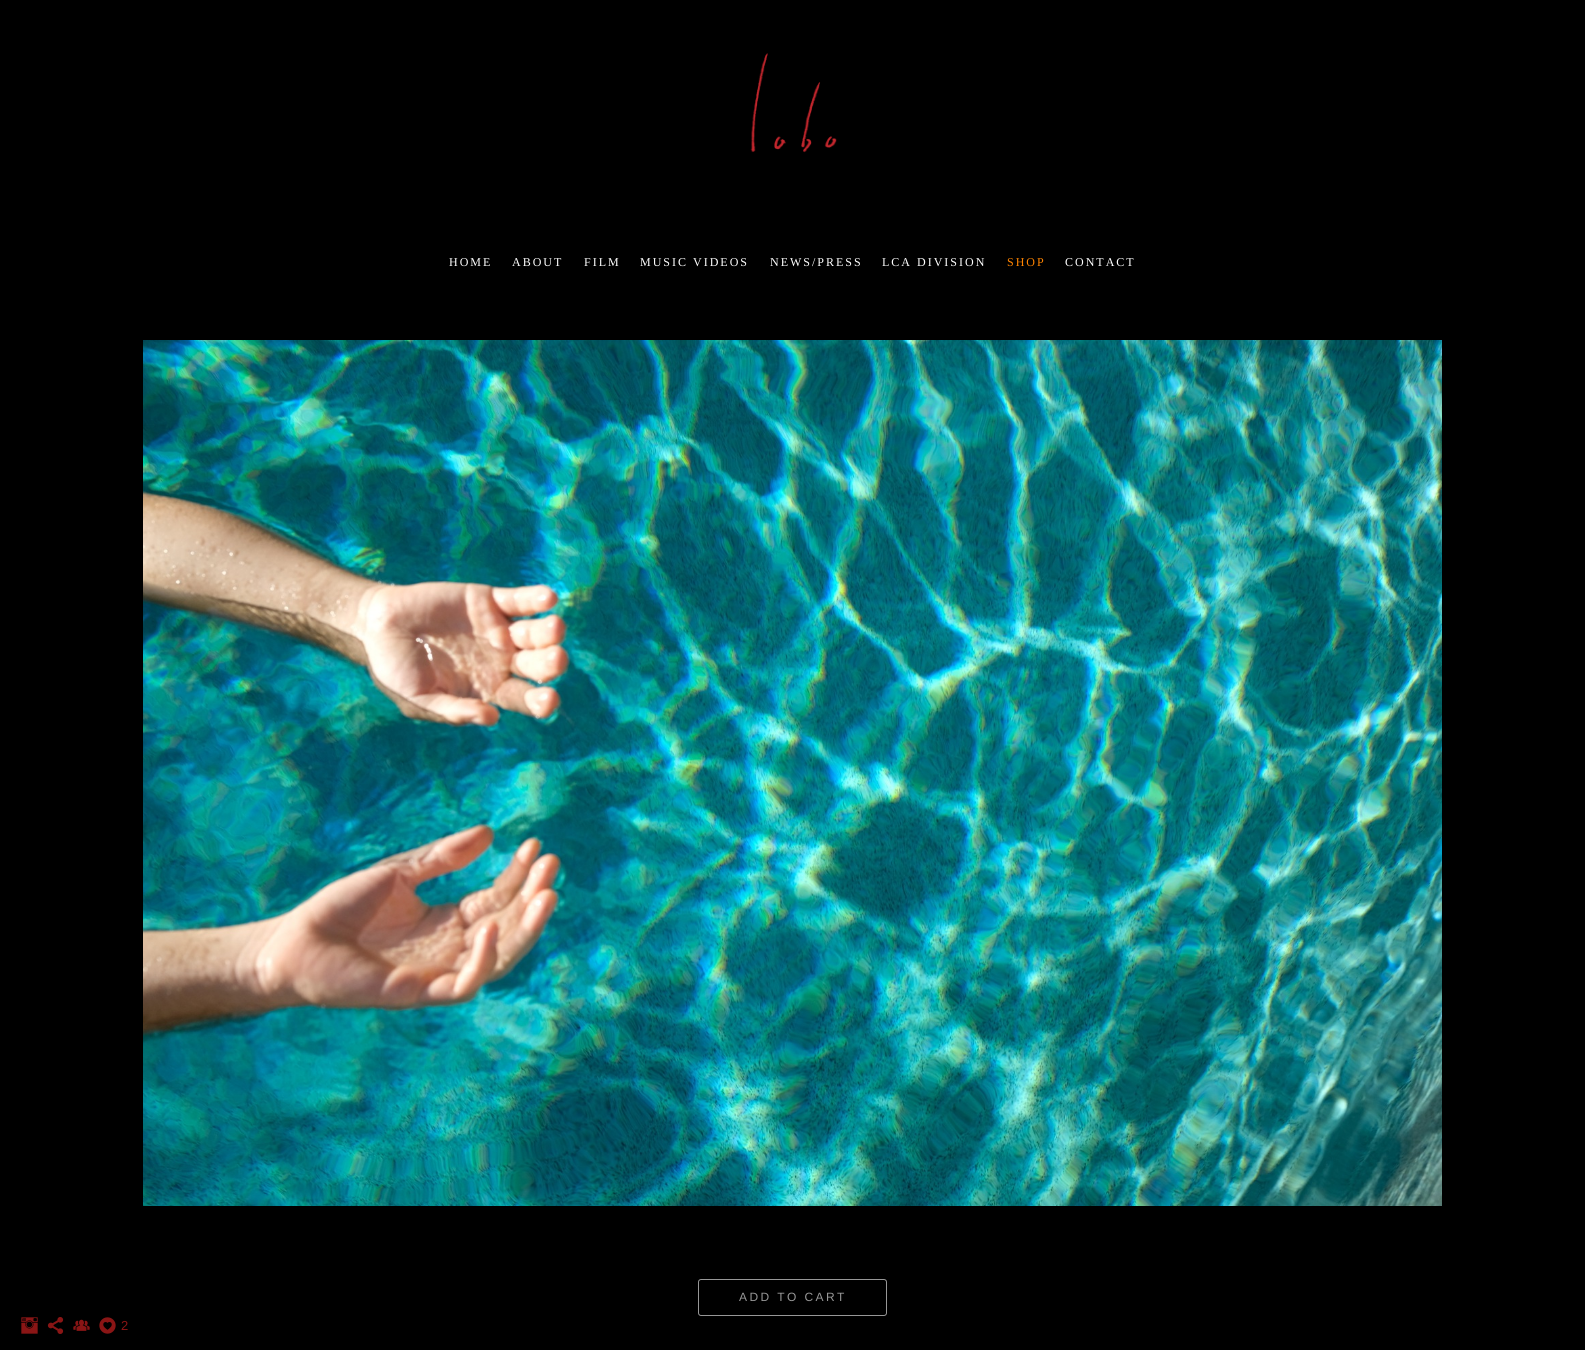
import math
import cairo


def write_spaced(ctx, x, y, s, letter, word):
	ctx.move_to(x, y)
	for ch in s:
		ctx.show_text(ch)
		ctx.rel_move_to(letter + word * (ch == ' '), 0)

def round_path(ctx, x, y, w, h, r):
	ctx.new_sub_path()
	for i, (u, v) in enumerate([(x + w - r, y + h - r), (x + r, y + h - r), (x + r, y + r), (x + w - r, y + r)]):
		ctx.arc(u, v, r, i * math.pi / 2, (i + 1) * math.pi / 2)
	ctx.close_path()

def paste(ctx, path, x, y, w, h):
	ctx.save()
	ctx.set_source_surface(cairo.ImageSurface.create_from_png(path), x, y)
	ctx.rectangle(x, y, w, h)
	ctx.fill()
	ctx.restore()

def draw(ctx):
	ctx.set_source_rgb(0, 0, 0)
	ctx.paint()
	paste(ctx, 'media/1.png', 750, 53, 87, 100)
	ctx.select_font_face('Liberation Serif')
	ctx.set_font_size(12)
	ctx.set_source_rgb(1, 1, 1)
	for x, y, s in [
		(449, 266, 'HOME'),
		(512, 266, 'ABOUT'),
		(584, 266, 'FILM'),
		(640, 266, 'MUSIC VIDEOS'),
		(770, 266, 'NEWS/PRESS'),
		(882, 266, 'LCA DIVISION'),
	]:
		write_spaced(ctx, x, y, s, 2, 0)
	ctx.set_source_rgb(1, 0.518, 0)
	write_spaced(ctx, 1007, 266, 'SHOP', 2, 0)
	ctx.set_source_rgb(1, 1, 1)
	write_spaced(ctx, 1065, 266, 'CONTACT', 2, 0)
	paste(ctx, 'media/2.png', 143, 340, 1299, 866)
	round_path(ctx, 698.5, 1279.5, 188, 36, 2.5)
	ctx.set_source_rgb(0.592, 0.592, 0.592)
	ctx.set_line_width(1)
	ctx.stroke()
	ctx.select_font_face('Liberation Sans')
	write_spaced(ctx, 739, 1301, 'ADD TO CART', 2.4, 0)
	paste(ctx, 'media/3.png', 21, 1317, 17, 17)
	paste(ctx, 'media/4.png', 47, 1317, 17, 17)
	paste(ctx, 'media/5.png', 73, 1319, 17, 12)
	paste(ctx, 'media/6.png', 99, 1317, 17, 17)
	ctx.set_font_size(13)
	ctx.set_source_rgb(0.541, 0.082, 0.082)
	ctx.move_to(121, 1330)
	ctx.show_text('2')


surface = cairo.ImageSurface(cairo.FORMAT_RGB24, 1585, 1350)
ctx = cairo.Context(surface)
options = cairo.FontOptions()
options.set_hint_metrics(cairo.HINT_METRICS_OFF)
options.set_hint_style(cairo.HINT_STYLE_NONE)
ctx.set_font_options(options)
ctx.set_miter_limit(4)
draw(ctx)
surface.write_to_png('image.png')
